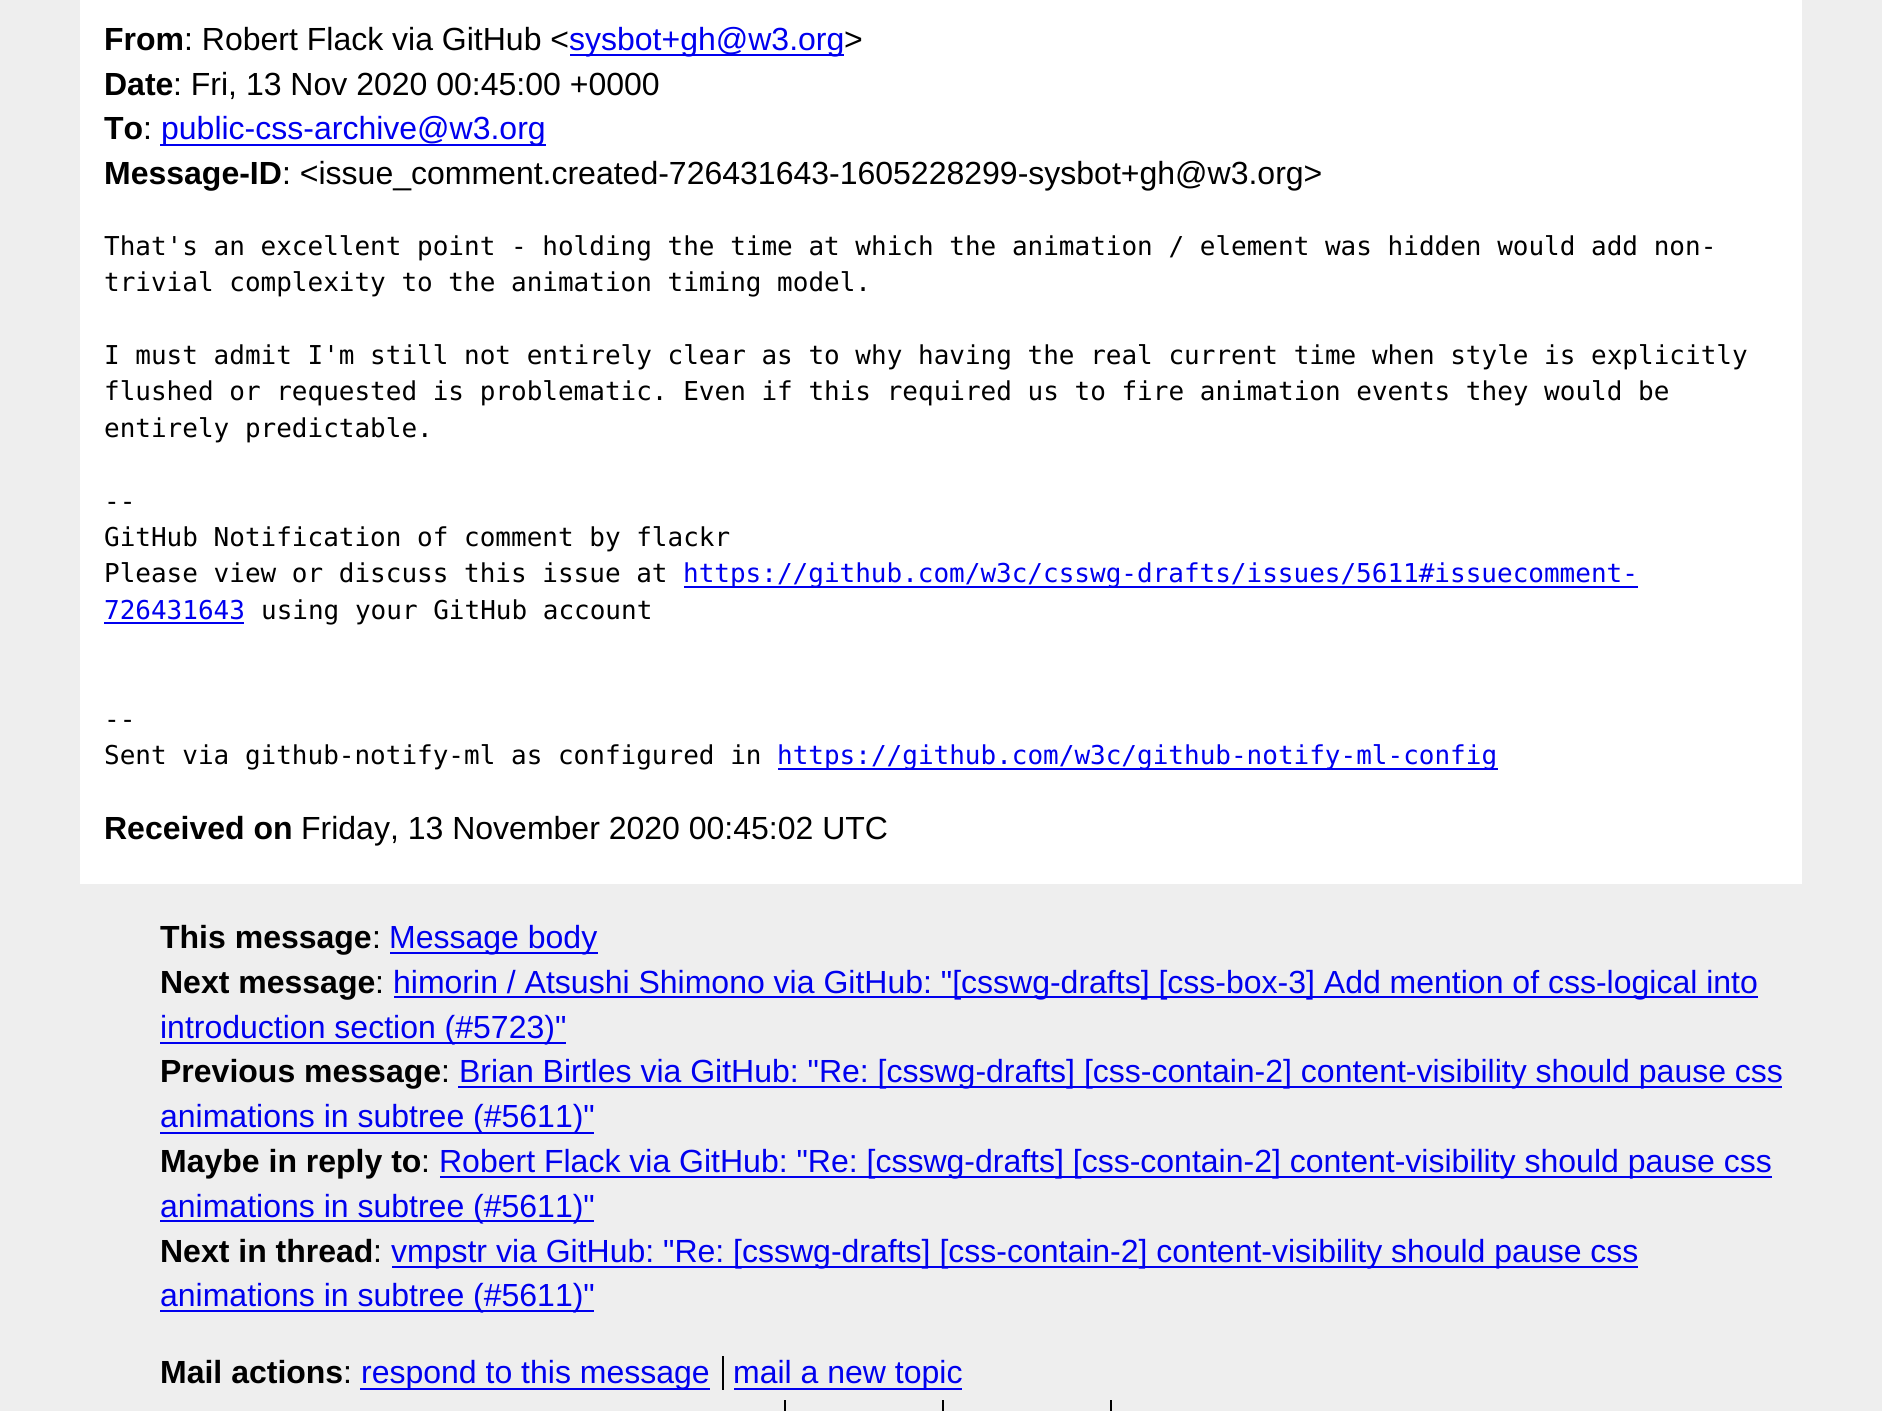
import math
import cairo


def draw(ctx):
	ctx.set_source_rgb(0.933, 0.933, 0.933)
	ctx.paint()
	ctx.set_source_rgb(1, 1, 1)
	ctx.rectangle(80, 0, 1722, 884)
	ctx.fill()
	ctx.select_font_face('Liberation Sans', cairo.FONT_SLANT_NORMAL, cairo.FONT_WEIGHT_BOLD)
	ctx.set_font_size(32)
	ctx.set_source_rgb(0, 0, 0)
	ctx.move_to(104, 50)
	ctx.show_text('From')
	ctx.select_font_face('Liberation Sans')
	ctx.move_to(184, 50)
	ctx.show_text(': Robert Flack via GitHub <')
	ctx.set_source_rgb(0, 0, 0.933)
	ctx.rectangle(570, 54, 274, 2)
	ctx.fill()
	ctx.move_to(569, 50)
	ctx.show_text('sysbot+gh@w3.org')
	ctx.set_source_rgb(0, 0, 0)
	ctx.move_to(844, 50)
	ctx.show_text('>')
	ctx.select_font_face('Liberation Sans', cairo.FONT_SLANT_NORMAL, cairo.FONT_WEIGHT_BOLD)
	ctx.move_to(104, 95)
	ctx.show_text('Date')
	ctx.select_font_face('Liberation Sans')
	ctx.move_to(173, 95)
	ctx.show_text(': Fri, 13 Nov 2020 00:45:00 +0000')
	ctx.select_font_face('Liberation Sans', cairo.FONT_SLANT_NORMAL, cairo.FONT_WEIGHT_BOLD)
	ctx.move_to(104, 139)
	ctx.show_text('To')
	ctx.select_font_face('Liberation Sans')
	ctx.move_to(143, 139)
	ctx.show_text(':')
	ctx.set_source_rgb(0, 0, 0.933)
	ctx.rectangle(160, 144, 386, 2)
	ctx.fill()
	ctx.move_to(161, 139)
	ctx.show_text('public-css-archive@w3.org')
	ctx.select_font_face('Liberation Sans', cairo.FONT_SLANT_NORMAL, cairo.FONT_WEIGHT_BOLD)
	ctx.set_source_rgb(0, 0, 0)
	ctx.move_to(104, 184)
	ctx.show_text('Message-ID')
	ctx.select_font_face('Liberation Sans')
	ctx.move_to(282, 184)
	ctx.show_text(': <issue_comment.created-726431643-1605228299-sysbot+gh@w3.org>')
	ctx.select_font_face('DejaVu Sans Mono')
	ctx.set_font_size(26)
	for x, y, s in [
		(104, 255, 'That\'s an excellent point - holding the time at which the animation / element was hidden would add non-'),
		(104, 291, 'trivial complexity to the animation timing model.'),
		(104, 364, 'I must admit I\'m still not entirely clear as to why having the real current time when style is explicitly'),
		(104, 400, 'flushed or requested is problematic. Even if this required us to fire animation events they would be'),
		(104, 437, 'entirely predictable.'),
		(104, 510, '--'),
		(104, 546, 'GitHub Notification of comment by flackr'),
		(104, 582, 'Please view or discuss this issue at'),
	]:
		ctx.move_to(x, y)
		ctx.show_text(s)
	ctx.set_source_rgb(0, 0, 0.933)
	ctx.rectangle(684, 586, 954, 2)
	ctx.fill()
	ctx.move_to(683, 582)
	ctx.show_text('https://github.com/w3c/csswg-drafts/issues/5611#issuecomment-')
	ctx.move_to(104, 619)
	ctx.show_text('726431643')
	ctx.rectangle(104, 622, 140, 2)
	ctx.fill()
	ctx.set_source_rgb(0, 0, 0)
	for x, y, s in [
		(261, 619, 'using your GitHub account'),
		(104, 728, '--'),
		(104, 764, 'Sent via github-notify-ml as configured in'),
	]:
		ctx.move_to(x, y)
		ctx.show_text(s)
	ctx.set_source_rgb(0, 0, 0.933)
	ctx.rectangle(778, 768, 720, 2)
	ctx.fill()
	ctx.move_to(777, 764)
	ctx.show_text('https://github.com/w3c/github-notify-ml-config')
	ctx.select_font_face('Liberation Sans', cairo.FONT_SLANT_NORMAL, cairo.FONT_WEIGHT_BOLD)
	ctx.set_font_size(32)
	ctx.set_source_rgb(0, 0, 0)
	ctx.move_to(104, 839)
	ctx.show_text('Received on')
	ctx.select_font_face('Liberation Sans')
	ctx.move_to(301, 839)
	ctx.show_text('Friday, 13 November 2020 00:45:02 UTC')
	ctx.select_font_face('Liberation Sans', cairo.FONT_SLANT_NORMAL, cairo.FONT_WEIGHT_BOLD)
	ctx.move_to(160, 948)
	ctx.show_text('This message')
	ctx.select_font_face('Liberation Sans')
	ctx.move_to(372, 948)
	ctx.show_text(':')
	ctx.set_source_rgb(0, 0, 0.933)
	ctx.rectangle(390, 952, 208, 2)
	ctx.fill()
	ctx.move_to(389, 948)
	ctx.show_text('Message body')
	ctx.select_font_face('Liberation Sans', cairo.FONT_SLANT_NORMAL, cairo.FONT_WEIGHT_BOLD)
	ctx.set_source_rgb(0, 0, 0)
	ctx.move_to(160, 993)
	ctx.show_text('Next message')
	ctx.select_font_face('Liberation Sans')
	ctx.move_to(375, 993)
	ctx.show_text(':')
	ctx.set_source_rgb(0, 0, 0.933)
	ctx.rectangle(394, 996, 1364, 2)
	ctx.fill()
	ctx.move_to(393, 993)
	ctx.show_text('himorin / Atsushi Shimono via GitHub: "[csswg-drafts] [css-box-3] Add mention of css-logical into')
	ctx.rectangle(160, 1042, 406, 2)
	ctx.fill()
	ctx.move_to(160, 1038)
	ctx.show_text('introduction section (#5723)"')
	ctx.select_font_face('Liberation Sans', cairo.FONT_SLANT_NORMAL, cairo.FONT_WEIGHT_BOLD)
	ctx.set_source_rgb(0, 0, 0)
	ctx.move_to(160, 1082)
	ctx.show_text('Previous message')
	ctx.select_font_face('Liberation Sans')
	ctx.move_to(441, 1082)
	ctx.show_text(':')
	ctx.set_source_rgb(0, 0, 0.933)
	ctx.rectangle(458, 1086, 1324, 2)
	ctx.fill()
	ctx.move_to(459, 1082)
	ctx.show_text('Brian Birtles via GitHub: "Re: [csswg-drafts] [css-contain-2] content-visibility should pause css')
	ctx.rectangle(160, 1132, 434, 2)
	ctx.fill()
	ctx.move_to(160, 1127)
	ctx.show_text('animations in subtree (#5611)"')
	ctx.select_font_face('Liberation Sans', cairo.FONT_SLANT_NORMAL, cairo.FONT_WEIGHT_BOLD)
	ctx.set_source_rgb(0, 0, 0)
	ctx.move_to(160, 1172)
	ctx.show_text('Maybe in reply to')
	ctx.select_font_face('Liberation Sans')
	ctx.move_to(421, 1172)
	ctx.show_text(':')
	ctx.set_source_rgb(0, 0, 0.933)
	ctx.rectangle(440, 1176, 1332, 2)
	ctx.fill()
	ctx.move_to(439, 1172)
	ctx.show_text('Robert Flack via GitHub: "Re: [csswg-drafts] [css-contain-2] content-visibility should pause css')
	ctx.rectangle(160, 1220, 434, 2)
	ctx.fill()
	ctx.move_to(160, 1217)
	ctx.show_text('animations in subtree (#5611)"')
	ctx.select_font_face('Liberation Sans', cairo.FONT_SLANT_NORMAL, cairo.FONT_WEIGHT_BOLD)
	ctx.set_source_rgb(0, 0, 0)
	ctx.move_to(160, 1262)
	ctx.show_text('Next in thread')
	ctx.select_font_face('Liberation Sans')
	ctx.move_to(373, 1262)
	ctx.show_text(':')
	ctx.set_source_rgb(0, 0, 0.933)
	ctx.rectangle(392, 1266, 1246, 2)
	ctx.fill()
	ctx.move_to(391, 1262)
	ctx.show_text('vmpstr via GitHub: "Re: [csswg-drafts] [css-contain-2] content-visibility should pause css')
	ctx.rectangle(160, 1310, 434, 2)
	ctx.fill()
	ctx.move_to(160, 1306)
	ctx.show_text('animations in subtree (#5611)"')
	ctx.select_font_face('Liberation Sans', cairo.FONT_SLANT_NORMAL, cairo.FONT_WEIGHT_BOLD)
	ctx.set_source_rgb(0, 0, 0)
	ctx.move_to(160, 1383)
	ctx.show_text('Mail actions')
	ctx.select_font_face('Liberation Sans')
	ctx.move_to(343, 1383)
	ctx.show_text(':')
	ctx.set_source_rgb(0, 0, 0.933)
	ctx.rectangle(360, 1388, 350, 2)
	ctx.fill()
	ctx.move_to(361, 1383)
	ctx.show_text('respond to this message')
	ctx.rectangle(734, 1388, 228, 2)
	ctx.fill()
	ctx.move_to(733, 1383)
	ctx.show_text('mail a new topic')
	ctx.set_source_rgb(0, 0, 0)
	ctx.rectangle(722, 1356, 2, 34)
	ctx.rectangle(784, 1400, 2, 11)
	ctx.rectangle(942, 1400, 2, 11)
	ctx.rectangle(1110, 1400, 2, 11)
	ctx.fill()


surface = cairo.ImageSurface(cairo.FORMAT_RGB24, 1882, 1411)
ctx = cairo.Context(surface)
options = cairo.FontOptions()
options.set_hint_metrics(cairo.HINT_METRICS_OFF)
options.set_hint_style(cairo.HINT_STYLE_NONE)
ctx.set_font_options(options)
ctx.set_miter_limit(4)
draw(ctx)
surface.write_to_png('image.png')
